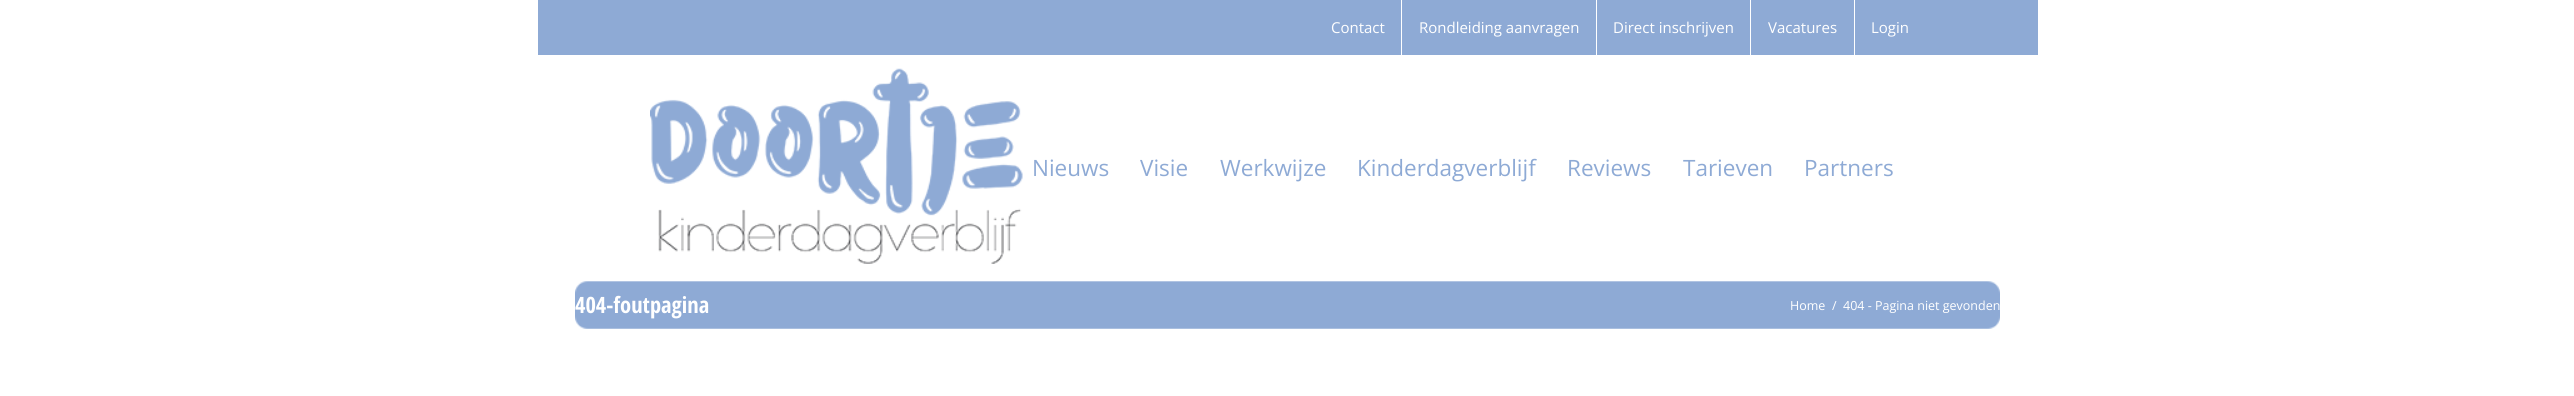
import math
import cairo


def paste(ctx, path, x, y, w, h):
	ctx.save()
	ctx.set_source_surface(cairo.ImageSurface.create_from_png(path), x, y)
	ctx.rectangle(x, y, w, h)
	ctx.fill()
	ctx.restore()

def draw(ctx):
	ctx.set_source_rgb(1, 1, 1)
	ctx.paint()
	ctx.set_source_rgb(0.557, 0.667, 0.835)
	ctx.rectangle(538, 0, 1500, 55)
	ctx.fill()
	ctx.select_font_face('Open Sans')
	ctx.set_font_size(15)
	ctx.set_source_rgb(1, 1, 1)
	ctx.move_to(1331, 33)
	ctx.show_text('Contact')
	ctx.rectangle(1401, 0, 1, 55)
	ctx.fill()
	ctx.move_to(1419, 33)
	ctx.show_text('Rondleiding aanvragen')
	ctx.rectangle(1596, 0, 1, 55)
	ctx.fill()
	ctx.move_to(1613, 33)
	ctx.show_text('Direct inschrijven')
	ctx.rectangle(1750, 0, 1, 55)
	ctx.fill()
	ctx.move_to(1768, 33)
	ctx.show_text('Vacatures')
	ctx.rectangle(1854, 0, 1, 55)
	ctx.fill()
	ctx.move_to(1871, 33)
	ctx.show_text('Login')
	paste(ctx, 'media/1.png', 650, 68, 373, 196)
	ctx.set_font_size(22.5)
	ctx.set_source_rgb(0.557, 0.667, 0.835)
	for x, y, s in [
		(1032, 176, 'Nieuws'),
		(1140, 176, 'Visie'),
		(1220, 176, 'Werkwijze'),
		(1357, 176, 'Kinderdagverblijf'),
		(1567, 176, 'Reviews'),
		(1683, 176, 'Tarieven'),
		(1804, 176, 'Partners'),
	]:
		ctx.move_to(x, y)
		ctx.show_text(s)
	paste(ctx, 'media/2.png', 575, 281, 1425, 48)
	ctx.select_font_face('Open Sans Condensed', cairo.FONT_SLANT_NORMAL, cairo.FONT_WEIGHT_BOLD)
	ctx.set_source_rgb(1, 1, 1)
	ctx.move_to(575, 313)
	ctx.show_text('404-foutpagina')
	ctx.select_font_face('Open Sans')
	ctx.set_font_size(12.5)
	for x, y, s in [
		(1790, 310, 'Home'),
		(1832, 310, '/'),
		(1843, 310, '404 - Pagina niet gevonden'),
	]:
		ctx.move_to(x, y)
		ctx.show_text(s)


surface = cairo.ImageSurface(cairo.FORMAT_RGB24, 2574, 396)
ctx = cairo.Context(surface)
options = cairo.FontOptions()
options.set_hint_metrics(cairo.HINT_METRICS_OFF)
options.set_hint_style(cairo.HINT_STYLE_NONE)
ctx.set_font_options(options)
ctx.set_miter_limit(4)
draw(ctx)
surface.write_to_png('image.png')
